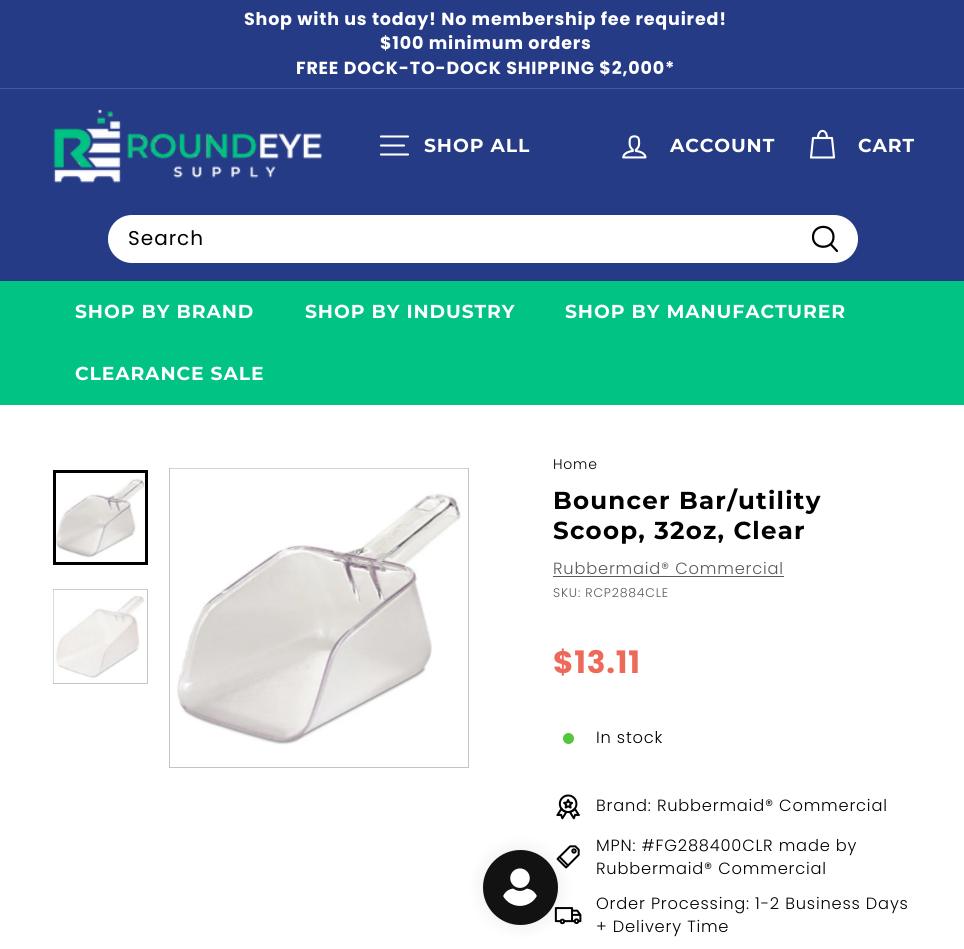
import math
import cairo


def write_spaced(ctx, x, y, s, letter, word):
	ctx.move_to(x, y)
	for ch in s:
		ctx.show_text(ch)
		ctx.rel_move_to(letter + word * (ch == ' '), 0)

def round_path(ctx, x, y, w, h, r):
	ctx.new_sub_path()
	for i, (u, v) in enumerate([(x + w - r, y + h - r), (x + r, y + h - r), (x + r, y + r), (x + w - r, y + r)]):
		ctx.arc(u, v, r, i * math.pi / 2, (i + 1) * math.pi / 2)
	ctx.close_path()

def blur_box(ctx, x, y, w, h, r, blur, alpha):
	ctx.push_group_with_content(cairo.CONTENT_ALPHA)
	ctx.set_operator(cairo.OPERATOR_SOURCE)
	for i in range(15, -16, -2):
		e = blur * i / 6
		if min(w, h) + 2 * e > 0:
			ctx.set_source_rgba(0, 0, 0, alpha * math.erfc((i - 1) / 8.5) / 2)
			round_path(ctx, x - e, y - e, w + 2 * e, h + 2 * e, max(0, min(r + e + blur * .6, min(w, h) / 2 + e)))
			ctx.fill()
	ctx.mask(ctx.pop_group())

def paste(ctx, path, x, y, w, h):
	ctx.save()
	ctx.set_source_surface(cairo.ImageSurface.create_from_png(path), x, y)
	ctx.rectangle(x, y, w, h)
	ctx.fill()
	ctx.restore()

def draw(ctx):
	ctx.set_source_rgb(1, 1, 1)
	ctx.paint()
	ctx.set_source_rgb(0.145, 0.231, 0.525)
	ctx.rectangle(0, 0, 964, 88)
	ctx.fill()
	ctx.select_font_face('Poppins', cairo.FONT_SLANT_NORMAL, cairo.FONT_WEIGHT_BOLD)
	ctx.set_font_size(17.5)
	ctx.set_source_rgb(1, 1, 1)
	for x, y, s in [
		(244, 25, 'Shop with us today! No membership fee required!'),
		(380, 49, '$100 minimum orders'),
		(296, 74, 'FREE DOCK-TO-DOCK SHIPPING $2,000*'),
	]:
		write_spaced(ctx, x, y, s, 0.8, 0)
	ctx.set_source_rgb(0.275, 0.345, 0.596)
	ctx.rectangle(0, 88, 964, 1)
	ctx.fill()
	ctx.set_source_rgb(0.145, 0.231, 0.525)
	ctx.rectangle(0, 89, 964, 192)
	ctx.fill()
	paste(ctx, 'media/1.png', 53, 109, 270, 74)
	ctx.new_path()
	ctx.move_to(381, 136.5)
	ctx.line_to(408, 136.5)
	ctx.move_to(381, 145.5)
	ctx.line_to(404, 145.5)
	ctx.move_to(381, 154.5)
	ctx.line_to(408, 154.5)
	ctx.set_source_rgb(1, 1, 1)
	ctx.set_line_width(2.1)
	ctx.set_line_cap(cairo.LINE_CAP_ROUND)
	ctx.set_line_join(cairo.LINE_JOIN_ROUND)
	ctx.stroke()
	ctx.select_font_face('Montserrat', cairo.FONT_SLANT_NORMAL, cairo.FONT_WEIGHT_BOLD)
	ctx.set_font_size(18.75)
	write_spaced(ctx, 424, 152, 'SHOP ALL', 0.9, 0)
	paste(ctx, 'media/2.png', 622, 135, 25, 24)
	write_spaced(ctx, 670, 152, 'ACCOUNT', 0.9, 0)
	ctx.new_path()
	ctx.move_to(818, 138)
	ctx.curve_to(818, 128.5, 827, 128.5, 827, 138)
	ctx.move_to(813, 138)
	ctx.line_to(832, 138)
	ctx.line_to(834, 157.5)
	ctx.line_to(811, 157.5)
	ctx.close_path()
	ctx.stroke()
	write_spaced(ctx, 858, 152, 'CART', 0.9, 0)
	round_path(ctx, 108, 215, 750, 48, 24)
	ctx.fill()
	ctx.select_font_face('Poppins')
	ctx.set_font_size(20)
	ctx.set_source_rgb(0, 0, 0)
	write_spaced(ctx, 128, 245, 'Search', 1, 0)
	ctx.new_path()
	ctx.move_to(833.5, 237)
	ctx.curve_to(833.5, 250, 813, 250, 813, 237)
	ctx.curve_to(813, 223.5, 833.5, 223.5, 833.5, 237)
	ctx.close_path()
	ctx.move_to(837, 251)
	ctx.line_to(830.5, 244)
	ctx.set_line_width(2.2)
	ctx.stroke()
	ctx.set_source_rgb(0, 0.765, 0.518)
	ctx.rectangle(0, 281, 964, 124)
	ctx.fill()
	ctx.select_font_face('Montserrat', cairo.FONT_SLANT_NORMAL, cairo.FONT_WEIGHT_BOLD)
	ctx.set_font_size(18.75)
	ctx.set_source_rgb(1, 1, 1)
	for x, y, s in [
		(75, 318, 'SHOP BY BRAND'),
		(305, 318, 'SHOP BY INDUSTRY'),
		(565, 318, 'SHOP BY MANUFACTURER'),
		(75, 380, 'CLEARANCE SALE'),
	]:
		write_spaced(ctx, x, y, s, 0.9, 0)
	paste(ctx, 'media/3.png', 56, 473, 89, 89)
	ctx.rectangle(54.5, 471.5, 92, 92)
	ctx.set_source_rgb(0, 0, 0)
	ctx.set_line_width(3)
	ctx.set_line_cap(cairo.LINE_CAP_BUTT)
	ctx.set_line_join(cairo.LINE_JOIN_MITER)
	ctx.stroke()
	ctx.rectangle(53.5, 589.5, 94, 94)
	ctx.set_source_rgb(0.769, 0.769, 0.769)
	ctx.set_line_width(1)
	ctx.stroke()
	paste(ctx, 'media/4.png', 53, 589, 94, 94)
	ctx.rectangle(169.5, 468.5, 299, 299)
	ctx.stroke()
	paste(ctx, 'media/5.png', 170, 468, 298, 277)
	ctx.select_font_face('Poppins Light')
	ctx.set_font_size(14)
	ctx.set_source_rgb(0, 0, 0)
	write_spaced(ctx, 553, 469, 'Home', 0.8, 0)
	ctx.select_font_face('Montserrat', cairo.FONT_SLANT_NORMAL, cairo.FONT_WEIGHT_BOLD)
	ctx.set_font_size(24.5)
	write_spaced(ctx, 553, 509, 'Bouncer Bar/utility', 1.25, 0)
	write_spaced(ctx, 553, 539, 'Scoop, 32oz, Clear', 1.25, 0)
	ctx.select_font_face('Poppins Light')
	ctx.set_font_size(16.25)
	ctx.set_source_rgb(0.349, 0.349, 0.349)
	write_spaced(ctx, 553, 574, 'Rubbermaid® Commercial', 0.8, 0)
	ctx.rectangle(553, 576, 231, 1)
	ctx.fill()
	ctx.set_font_size(12.5)
	write_spaced(ctx, 553, 597, 'SKU: RCP2884CLE', 0.8, 0)
	ctx.select_font_face('Poppins', cairo.FONT_SLANT_NORMAL, cairo.FONT_WEIGHT_BOLD)
	ctx.set_font_size(31)
	ctx.set_source_rgb(0.929, 0.416, 0.353)
	write_spaced(ctx, 553, 673, '$13.11', 0.8, 0)
	ctx.set_source_rgb(0.329, 0.776, 0.227)
	ctx.new_path()
	ctx.arc(568.5, 738.5, 5.5, 0, 2 * math.pi)
	ctx.fill()
	ctx.select_font_face('Poppins Light')
	ctx.set_font_size(16.25)
	ctx.set_source_rgb(0, 0, 0)
	write_spaced(ctx, 596, 743, 'In stock', 0.8, 0)
	paste(ctx, 'media/6.png', 556, 794, 24, 26)
	write_spaced(ctx, 596, 811, 'Brand: Rubbermaid® Commercial', 0.8, 0)
	paste(ctx, 'media/7.png', 556, 845, 24, 24)
	write_spaced(ctx, 596, 851, 'MPN: #FG288400CLR made by', 0.8, 0)
	write_spaced(ctx, 596, 874, 'Rubbermaid® Commercial', 0.8, 0)
	paste(ctx, 'media/8.png', 554, 907, 28, 18)
	write_spaced(ctx, 596, 909, 'Order Processing: 1-2 Business Days', 0.8, 0)
	write_spaced(ctx, 596, 932, '+ Delivery Time', 0.8, 0)
	ctx.set_source_rgb(0, 0, 0)
	blur_box(ctx, 483, 850, 75, 75, 37.5, 9.5, 0.08)
	ctx.set_source_rgb(0.071, 0.071, 0.071)
	ctx.arc(520.5, 887.5, 37.5, 0, 2 * math.pi)
	ctx.fill()
	paste(ctx, 'media/9.png', 503, 868, 34, 38)


surface = cairo.ImageSurface(cairo.FORMAT_RGB24, 964, 949)
ctx = cairo.Context(surface)
options = cairo.FontOptions()
options.set_hint_metrics(cairo.HINT_METRICS_OFF)
options.set_hint_style(cairo.HINT_STYLE_NONE)
ctx.set_font_options(options)
ctx.set_miter_limit(4)
draw(ctx)
surface.write_to_png('image.png')
